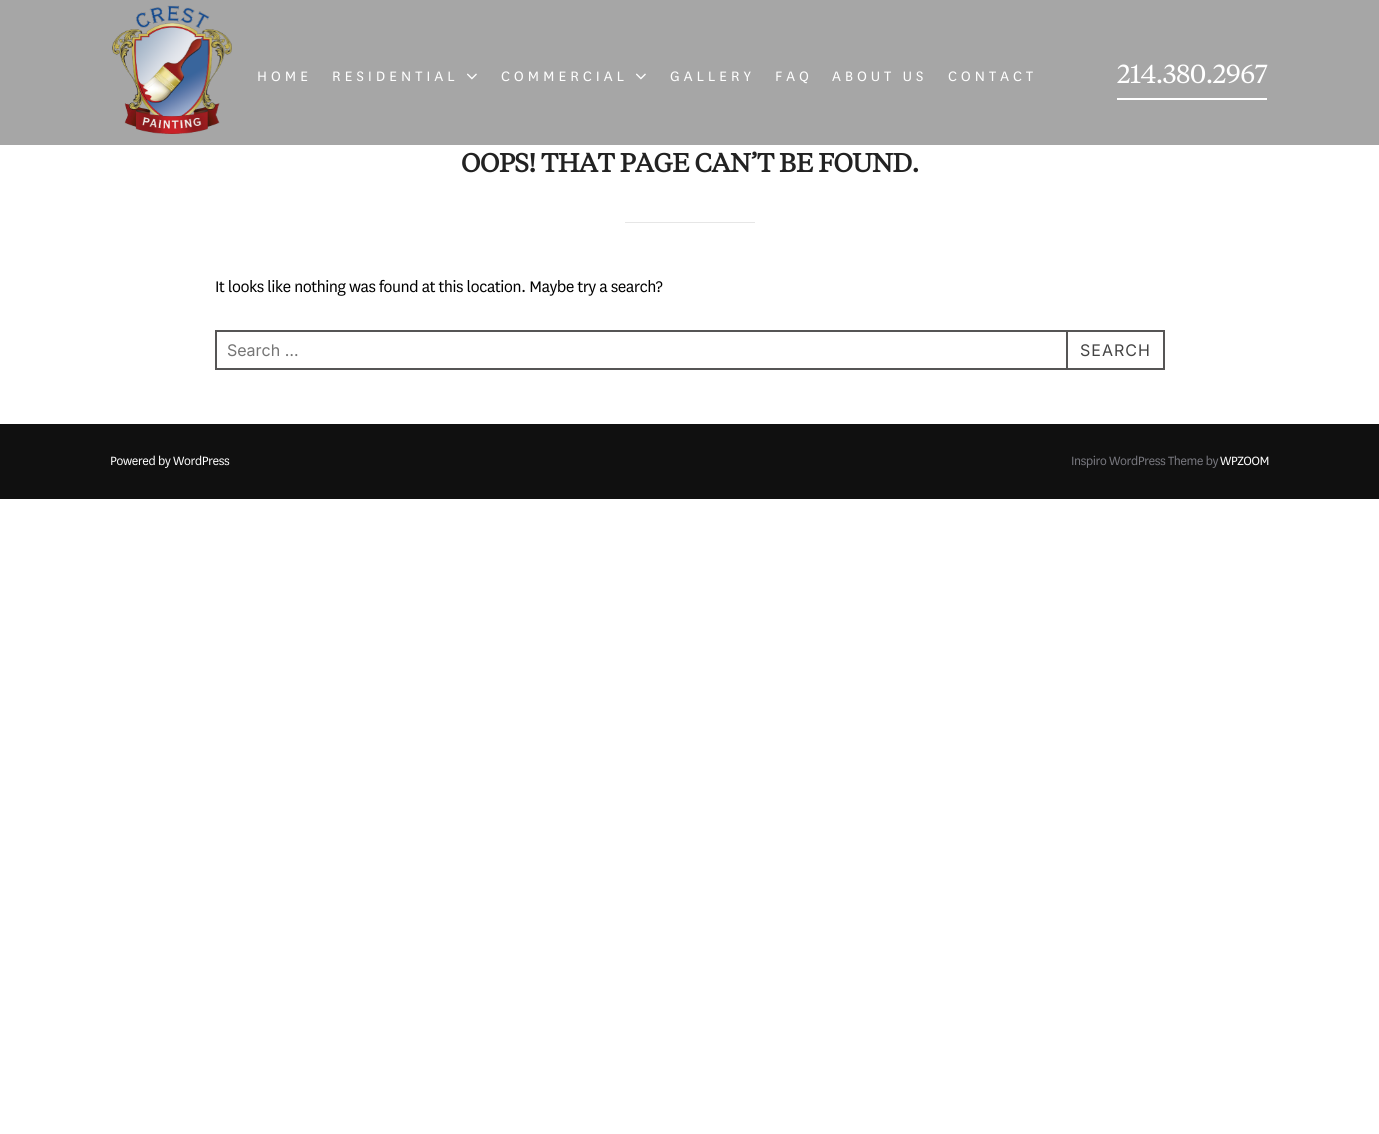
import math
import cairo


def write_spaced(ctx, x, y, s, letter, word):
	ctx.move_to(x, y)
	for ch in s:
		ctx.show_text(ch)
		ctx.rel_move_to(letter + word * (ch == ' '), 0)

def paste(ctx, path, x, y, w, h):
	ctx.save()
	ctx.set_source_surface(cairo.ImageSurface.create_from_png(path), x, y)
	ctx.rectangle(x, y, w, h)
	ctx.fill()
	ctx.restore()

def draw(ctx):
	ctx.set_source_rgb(1, 1, 1)
	ctx.paint()
	ctx.set_source_rgb(0.651, 0.651, 0.651)
	ctx.rectangle(0, 0, 1379, 145)
	ctx.fill()
	paste(ctx, 'media/1.png', 112, 5, 120, 129)
	paste(ctx, 'media/2.png', 258, 71, 50, 11)
	paste(ctx, 'media/3.png', 333, 71, 122, 11)
	paste(ctx, 'media/4.png', 467, 73, 10, 7)
	paste(ctx, 'media/5.png', 501, 71, 123, 11)
	paste(ctx, 'media/4.png', 636, 73, 10, 7)
	paste(ctx, 'media/6.png', 670, 71, 81, 11)
	paste(ctx, 'media/7.png', 776, 71, 33, 13)
	paste(ctx, 'media/8.png', 832, 71, 91, 11)
	paste(ctx, 'media/9.png', 948, 71, 85, 11)
	ctx.set_source_rgb(1, 1, 1)
	ctx.rectangle(1117, 98, 150, 2)
	ctx.fill()
	ctx.select_font_face('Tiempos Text')
	ctx.set_font_size(26)
	write_spaced(ctx, 1117, 83, '214.380.2967', -0.45, 0)
	ctx.select_font_face('Tiempos Text', cairo.FONT_SLANT_NORMAL, cairo.FONT_WEIGHT_BOLD)
	ctx.set_source_rgb(0.133, 0.133, 0.133)
	write_spaced(ctx, 461, 172, 'OOPS! THAT PAGE CAN’T BE FOUND.', -0.45, 0)
	ctx.set_source_rgb(0.902, 0.902, 0.902)
	ctx.rectangle(625, 222, 130, 1)
	ctx.fill()
	paste(ctx, 'media/10.png', 216, 279, 447, 17)
	ctx.rectangle(216, 331, 948, 38)
	ctx.set_source_rgb(0.337, 0.333, 0.333)
	ctx.stroke()
	ctx.select_font_face('Inter')
	ctx.set_font_size(16)
	ctx.set_source_rgb(0.459, 0.459, 0.459)
	ctx.move_to(227, 356)
	ctx.show_text('Search …')
	ctx.rectangle(1067, 331, 97, 38)
	ctx.set_source_rgb(0.337, 0.333, 0.333)
	ctx.stroke()
	ctx.set_source_rgb(0.267, 0.267, 0.267)
	write_spaced(ctx, 1080, 356, 'SEARCH', 1, 0)
	ctx.set_source_rgb(0.063, 0.063, 0.063)
	ctx.rectangle(0, 424, 1379, 75)
	ctx.fill()
	paste(ctx, 'media/11.png', 111, 455, 119, 13)
	paste(ctx, 'media/12.png', 1072, 455, 147, 13)
	paste(ctx, 'media/13.png', 1220, 456, 49, 10)


surface = cairo.ImageSurface(cairo.FORMAT_RGB24, 1379, 1134)
ctx = cairo.Context(surface)
options = cairo.FontOptions()
options.set_hint_metrics(cairo.HINT_METRICS_OFF)
options.set_hint_style(cairo.HINT_STYLE_NONE)
ctx.set_font_options(options)
ctx.set_miter_limit(4)
draw(ctx)
surface.write_to_png('image.png')
